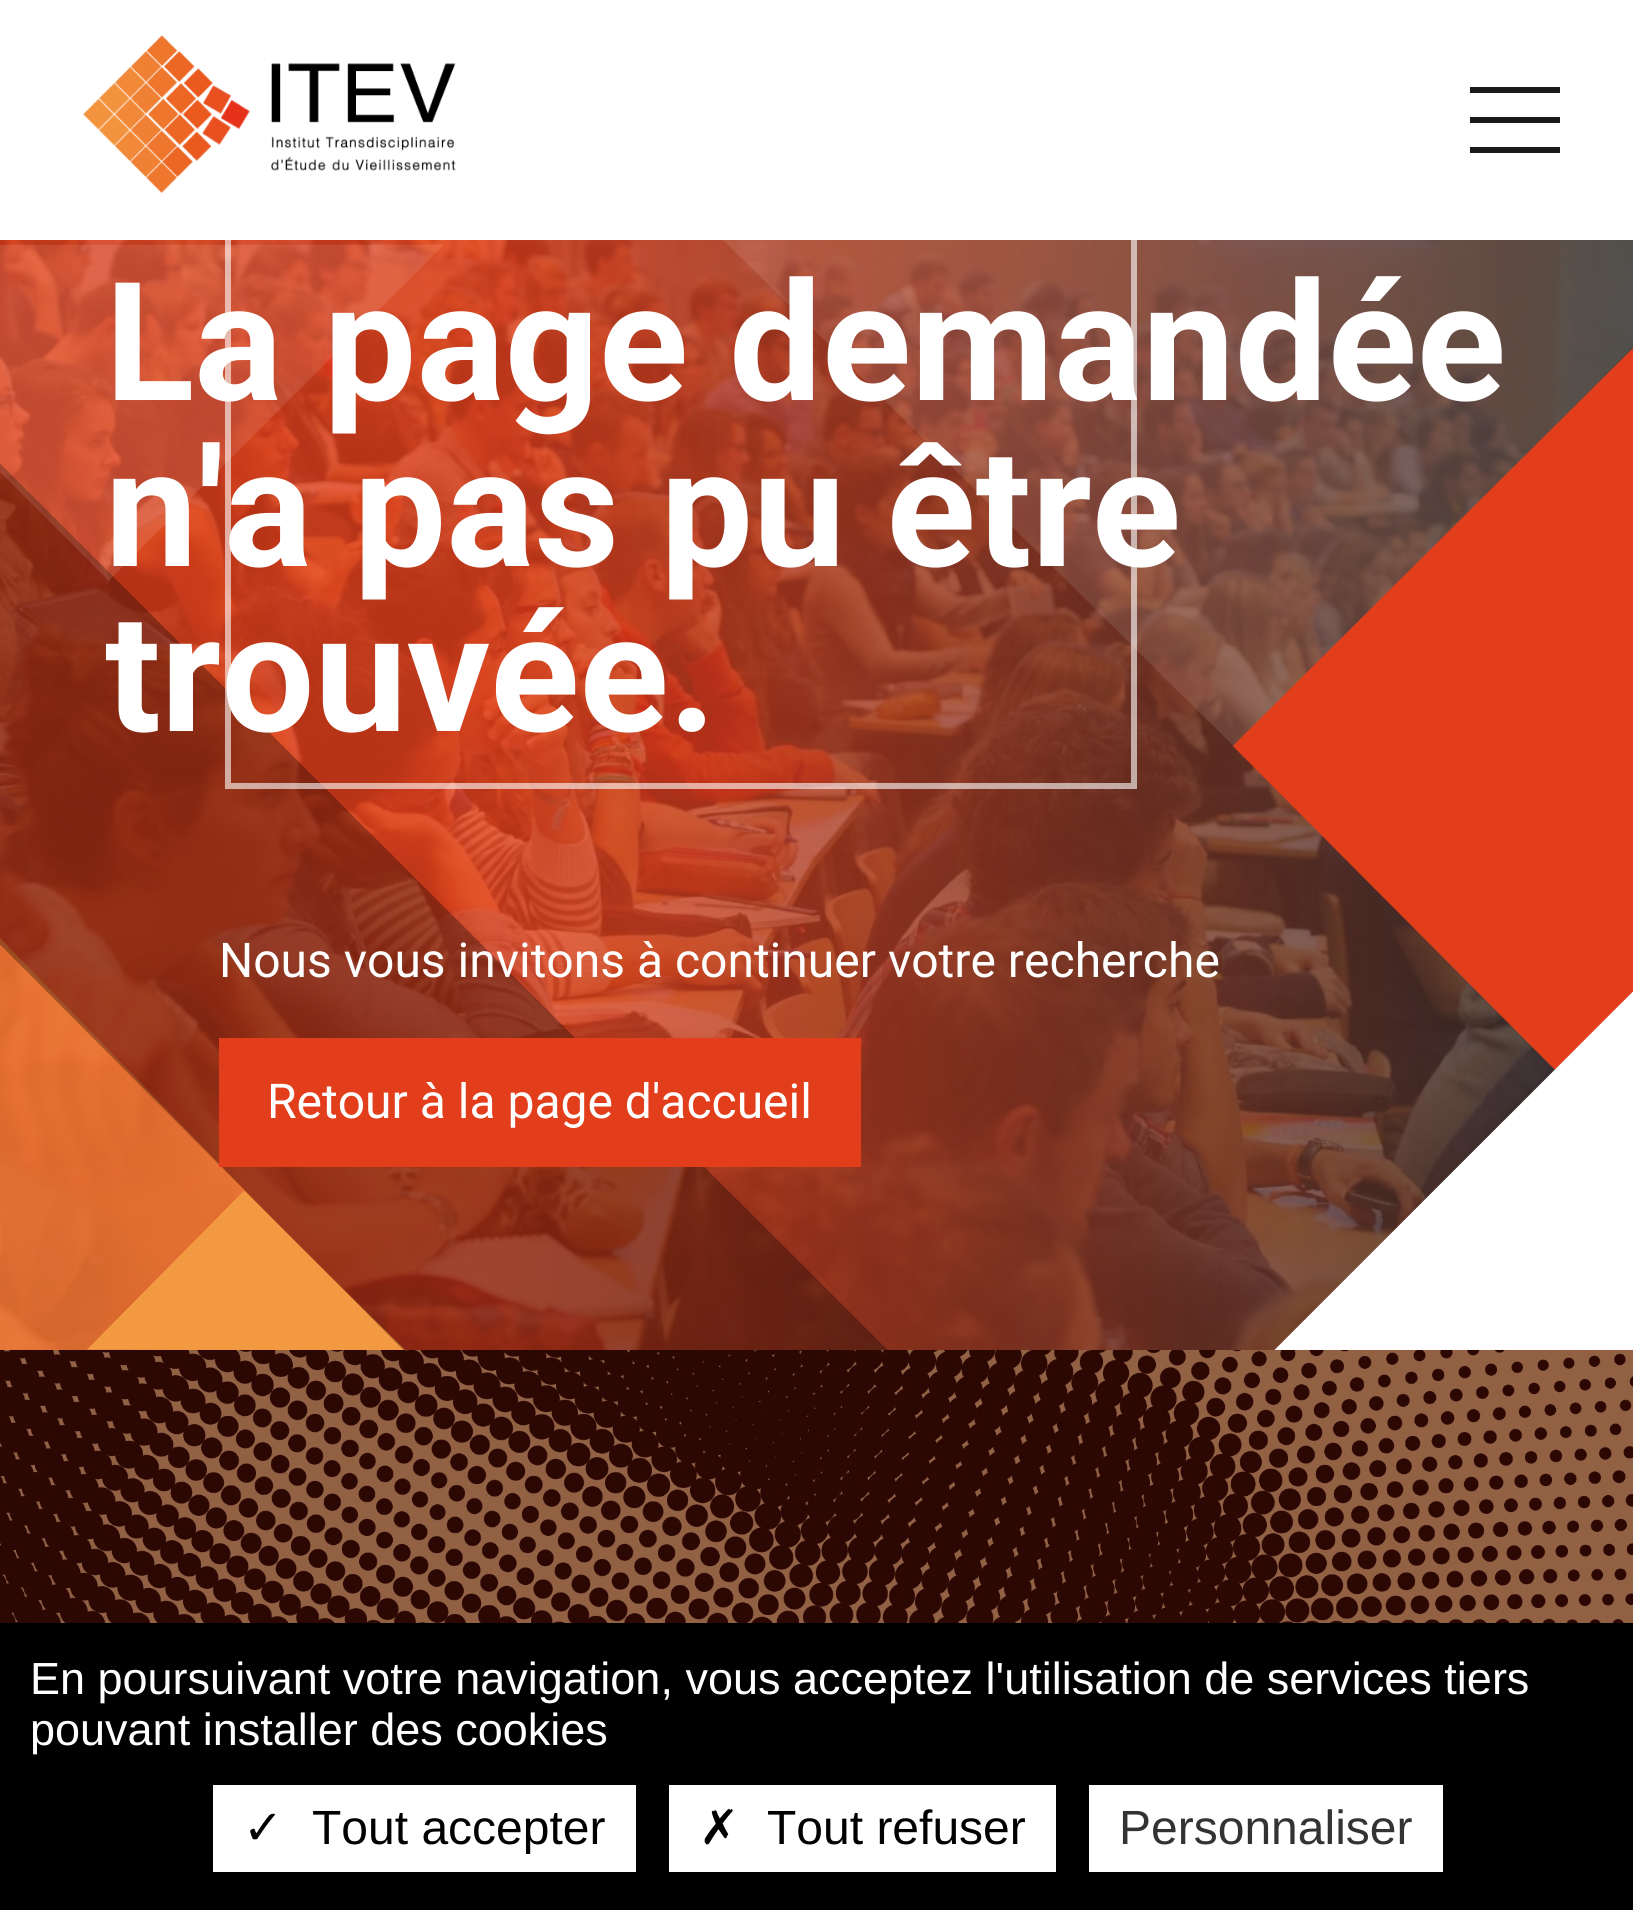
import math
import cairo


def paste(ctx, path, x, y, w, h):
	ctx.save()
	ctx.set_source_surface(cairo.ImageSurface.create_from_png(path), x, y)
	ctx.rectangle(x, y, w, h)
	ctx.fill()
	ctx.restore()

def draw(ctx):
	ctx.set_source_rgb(1, 1, 1)
	ctx.paint()
	paste(ctx, 'media/1.png', 83, 35, 373, 159)
	ctx.set_source_rgb(0.102, 0.102, 0.102)
	ctx.rectangle(1470, 87, 90, 6)
	ctx.rectangle(1470, 117, 90, 6)
	ctx.rectangle(1470, 147, 90, 6)
	ctx.fill()
	paste(ctx, 'media/2.png', 0, 240, 1633, 1110)
	paste(ctx, 'media/3.png', 0, 244, 888, 1106)
	paste(ctx, 'media/4.png', 723, 240, 910, 1110)
	ctx.select_font_face('Roboto', cairo.FONT_SLANT_NORMAL, cairo.FONT_WEIGHT_BOLD)
	ctx.set_font_size(165)
	ctx.set_source_rgb(1, 1, 1)
	for x, y, s in [
		(105, 400, 'La page demandée'),
		(105, 566, 'n\'a pas pu être'),
		(105, 731, 'trouvée.'),
	]:
		ctx.move_to(x, y)
		ctx.show_text(s)
	ctx.rectangle(228, 234, 906, 552)
	ctx.set_source_rgba(1, 1, 1, 0.6)
	ctx.set_line_width(6)
	ctx.stroke()
	ctx.select_font_face('Roboto')
	ctx.set_font_size(48)
	ctx.set_source_rgb(1, 1, 1)
	ctx.move_to(219, 977)
	ctx.show_text('Nous vous invitons à continuer votre recherche')
	gradient = cairo.LinearGradient(-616, 1616, 412, 589)
	gradient.add_color_stop_rgba(0.5, 0.18, 0.18, 0.18, 1)
	gradient.add_color_stop_rgba(0.5, 0.89, 0.243, 0.106, 1)
	ctx.set_source(gradient)
	ctx.rectangle(219, 1038, 642, 129)
	ctx.fill()
	ctx.set_source_rgb(1, 1, 1)
	ctx.move_to(267, 1118)
	ctx.show_text('Retour à la page d\'accueil')
	paste(ctx, 'media/5.png', 0, 1350, 1633, 273)
	ctx.set_source_rgb(0, 0, 0)
	ctx.rectangle(0, 1623, 1633, 287)
	ctx.fill()
	ctx.select_font_face('Liberation Sans')
	ctx.set_font_size(45)
	ctx.set_source_rgb(1, 1, 1)
	ctx.move_to(30, 1694)
	ctx.show_text('En poursuivant votre navigation, vous acceptez l\'utilisation de services tiers')
	ctx.move_to(30, 1745)
	ctx.show_text('pouvant installer des cookies')
	ctx.rectangle(213, 1785, 423, 87)
	ctx.fill()
	ctx.select_font_face('DejaVu Sans')
	ctx.set_font_size(48)
	ctx.set_source_rgb(0, 0, 0)
	ctx.move_to(243, 1844)
	ctx.show_text('✓')
	ctx.select_font_face('Liberation Sans')
	ctx.move_to(312, 1844)
	ctx.show_text('Tout accepter')
	ctx.set_source_rgb(1, 1, 1)
	ctx.rectangle(669, 1785, 387, 87)
	ctx.fill()
	ctx.select_font_face('DejaVu Sans')
	ctx.set_source_rgb(0, 0, 0)
	ctx.move_to(699, 1844)
	ctx.show_text('✗')
	ctx.select_font_face('Liberation Sans')
	ctx.move_to(767, 1844)
	ctx.show_text('Tout refuser')
	ctx.set_source_rgb(1, 1, 1)
	ctx.rectangle(1089, 1785, 354, 87)
	ctx.fill()
	ctx.set_source_rgb(0.2, 0.2, 0.2)
	ctx.move_to(1119, 1844)
	ctx.show_text('Personnaliser')


surface = cairo.ImageSurface(cairo.FORMAT_RGB24, 1633, 1910)
ctx = cairo.Context(surface)
options = cairo.FontOptions()
options.set_hint_metrics(cairo.HINT_METRICS_OFF)
options.set_hint_style(cairo.HINT_STYLE_NONE)
ctx.set_font_options(options)
ctx.set_miter_limit(4)
draw(ctx)
surface.write_to_png('image.png')
